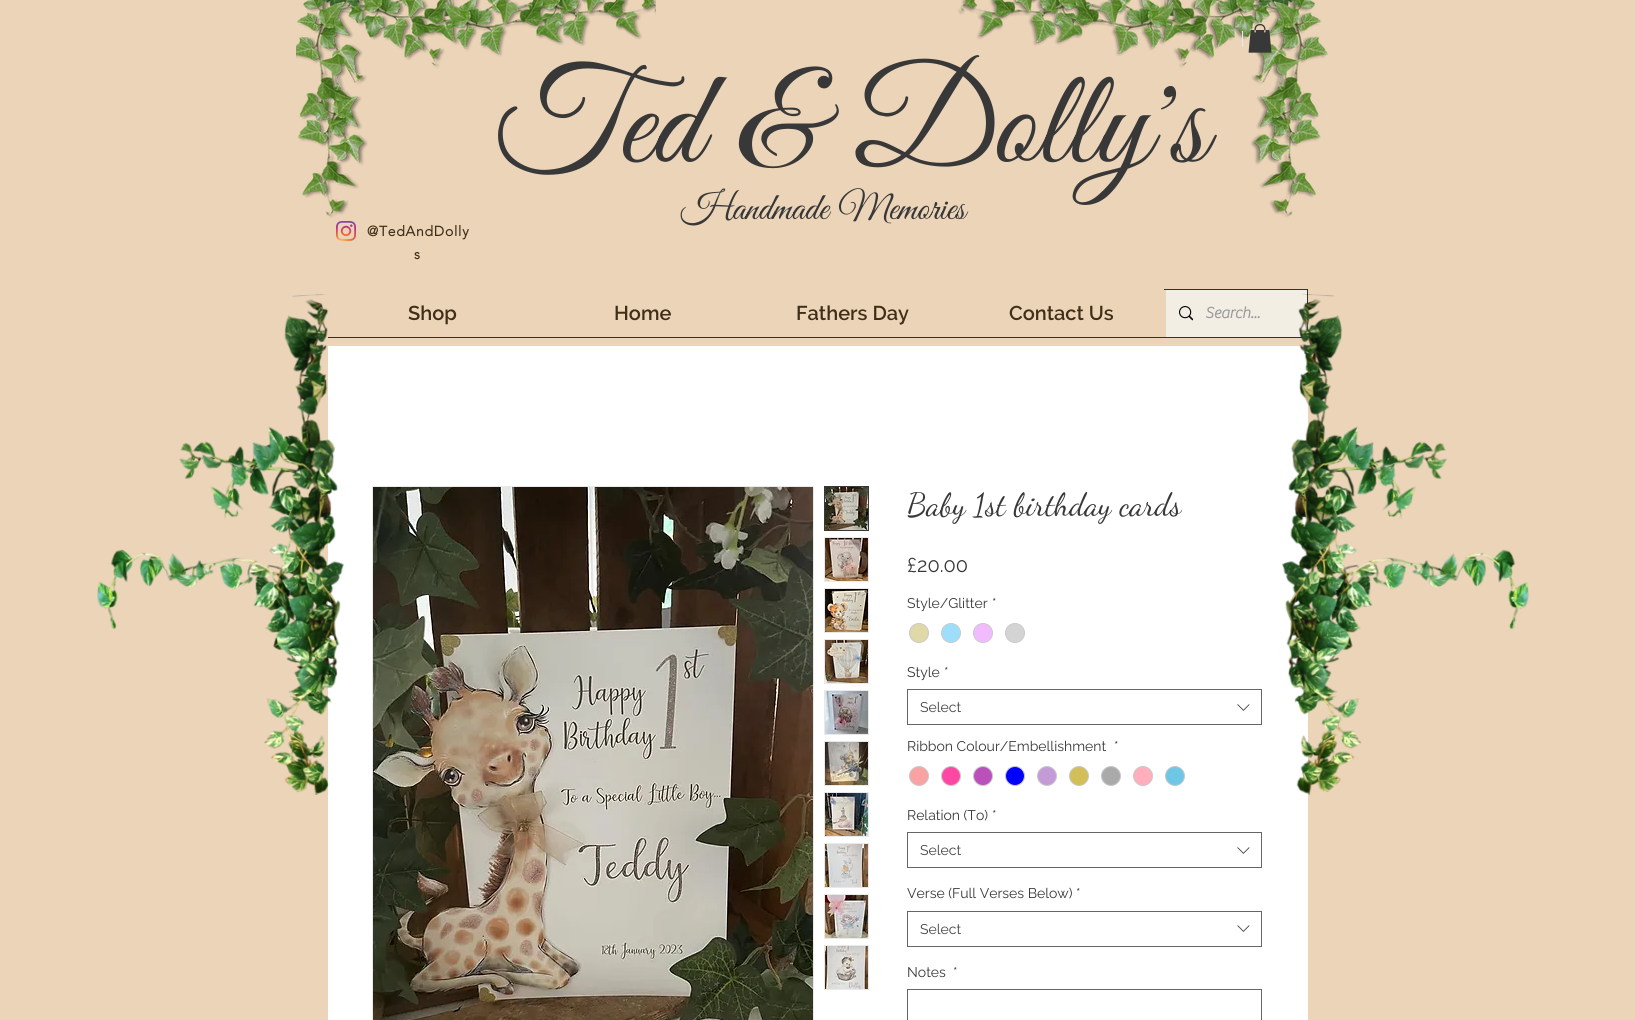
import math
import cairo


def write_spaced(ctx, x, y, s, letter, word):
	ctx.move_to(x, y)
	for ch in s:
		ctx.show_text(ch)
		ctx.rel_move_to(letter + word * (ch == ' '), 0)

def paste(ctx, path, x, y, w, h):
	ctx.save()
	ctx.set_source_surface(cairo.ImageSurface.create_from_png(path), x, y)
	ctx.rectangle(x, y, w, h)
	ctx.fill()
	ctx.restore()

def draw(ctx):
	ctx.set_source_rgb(0.918, 0.831, 0.722)
	ctx.paint()
	paste(ctx, 'media/1.png', 296, 0, 360, 218)
	paste(ctx, 'media/2.png', 958, 0, 370, 218)
	ctx.set_source_rgb(0.914, 0.914, 0.914)
	ctx.rectangle(1242, 31, 1, 16)
	ctx.fill()
	paste(ctx, 'media/3.png', 1248, 24, 24, 29)
	ctx.select_font_face('Great Vibes')
	ctx.set_font_size(136)
	ctx.set_source_rgb(0.22, 0.22, 0.22)
	ctx.move_to(494, 162)
	ctx.show_text('Ted & Dolly\'s')
	ctx.set_font_size(38)
	ctx.move_to(680, 219)
	ctx.show_text('Handmade Memories')
	paste(ctx, 'media/4.png', 336, 221, 20, 20)
	ctx.select_font_face('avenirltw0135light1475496', cairo.FONT_SLANT_NORMAL, cairo.FONT_WEIGHT_BOLD)
	ctx.set_font_size(14)
	ctx.set_source_rgb(0.251, 0.18, 0.09)
	write_spaced(ctx, 367, 236, '@TedAndDolly', 0.75, 0)
	write_spaced(ctx, 414, 259, 's', 0.75, 0)
	ctx.rectangle(1164.5, 289.5, 143, 48)
	ctx.set_source_rgb(0.196, 0.196, 0.196)
	ctx.set_line_width(1)
	ctx.stroke()
	ctx.set_source_rgb(0.918, 0.831, 0.722)
	ctx.rectangle(1164, 290, 1, 47)
	ctx.fill()
	ctx.set_source_rgb(0.251, 0.18, 0.09)
	ctx.rectangle(328, 337, 838, 1)
	ctx.fill()
	ctx.select_font_face('Raleway SemiBold')
	ctx.set_font_size(20)
	for x, y, s in [
		(408, 320, 'Shop'),
		(614, 320, 'Home'),
		(796, 320, 'Fathers Day'),
		(1009, 320, 'Contact Us'),
	]:
		ctx.move_to(x, y)
		ctx.show_text(s)
	ctx.set_source_rgb(0.949, 0.933, 0.894)
	ctx.rectangle(1166, 290, 141, 47)
	ctx.fill()
	paste(ctx, 'media/5.png', 1179, 306, 14, 15)
	ctx.select_font_face('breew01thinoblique', cairo.FONT_SLANT_NORMAL, cairo.FONT_WEIGHT_BOLD)
	ctx.set_font_size(16)
	ctx.set_source_rgb(0.6, 0.6, 0.6)
	ctx.move_to(1205, 318)
	ctx.show_text('Search...')
	ctx.set_source_rgb(1, 1, 1)
	ctx.rectangle(328, 346, 980, 674)
	ctx.fill()
	paste(ctx, 'media/6.png', 97, 294, 247, 501)
	ctx.rectangle(372.5, 486.5, 441, 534)
	ctx.set_source_rgb(0.914, 0.914, 0.914)
	ctx.stroke()
	paste(ctx, 'media/7.png', 373, 487, 440, 533)
	ctx.rectangle(824.5, 486.5, 44, 44)
	ctx.set_source_rgb(0.22, 0.22, 0.22)
	ctx.stroke()
	paste(ctx, 'media/8.png', 825, 487, 43, 43)
	ctx.set_source_rgb(0.914, 0.914, 0.914)
	ctx.rectangle(824, 537, 45, 45)
	ctx.fill()
	paste(ctx, 'media/9.png', 825, 538, 43, 43)
	ctx.rectangle(824, 588, 45, 45)
	ctx.fill()
	paste(ctx, 'media/10.png', 825, 589, 43, 43)
	ctx.rectangle(824, 639, 45, 45)
	ctx.fill()
	paste(ctx, 'media/11.png', 825, 640, 43, 43)
	ctx.rectangle(824, 690, 45, 45)
	ctx.fill()
	paste(ctx, 'media/12.png', 825, 691, 43, 43)
	ctx.rectangle(824, 741, 45, 45)
	ctx.fill()
	paste(ctx, 'media/13.png', 825, 742, 43, 43)
	ctx.rectangle(824, 792, 45, 45)
	ctx.fill()
	paste(ctx, 'media/14.png', 825, 793, 43, 43)
	ctx.rectangle(824, 843, 45, 45)
	ctx.fill()
	paste(ctx, 'media/15.png', 825, 844, 43, 43)
	ctx.rectangle(824, 894, 45, 45)
	ctx.fill()
	paste(ctx, 'media/16.png', 825, 895, 43, 43)
	ctx.rectangle(824, 945, 45, 45)
	ctx.fill()
	paste(ctx, 'media/17.png', 825, 946, 43, 43)
	ctx.select_font_face('Dancing Script')
	ctx.set_font_size(32)
	ctx.set_source_rgb(0.22, 0.22, 0.22)
	ctx.move_to(907, 515)
	ctx.show_text('Baby 1st birthday cards')
	ctx.select_font_face('Raleway')
	ctx.set_font_size(20)
	ctx.move_to(907, 572)
	ctx.show_text('£20.00')
	ctx.set_font_size(14)
	ctx.move_to(907, 608)
	ctx.show_text('Style/Glitter')
	ctx.move_to(992, 608)
	ctx.show_text('*')
	ctx.set_source_rgb(0.882, 0.847, 0.659)
	ctx.new_path()
	ctx.arc(919, 633, 9.5, 0, 2 * math.pi)
	ctx.fill_preserve()
	ctx.set_source_rgb(0.788, 0.788, 0.788)
	ctx.stroke()
	ctx.set_source_rgb(0.616, 0.875, 0.984)
	ctx.arc(951, 633, 9.5, 0, 2 * math.pi)
	ctx.fill_preserve()
	ctx.set_source_rgb(0.788, 0.788, 0.788)
	ctx.stroke()
	ctx.set_source_rgb(0.953, 0.733, 1)
	ctx.arc(983, 633, 9.5, 0, 2 * math.pi)
	ctx.fill_preserve()
	ctx.set_source_rgb(0.788, 0.788, 0.788)
	ctx.stroke()
	ctx.set_source_rgb(0.831, 0.831, 0.831)
	ctx.arc(1015, 633, 9.5, 0, 2 * math.pi)
	ctx.fill_preserve()
	ctx.set_source_rgb(0.788, 0.788, 0.788)
	ctx.stroke()
	ctx.set_source_rgb(0.22, 0.22, 0.22)
	ctx.move_to(907, 677)
	ctx.show_text('Style')
	ctx.move_to(944, 677)
	ctx.show_text('*')
	ctx.rectangle(907.5, 689.5, 354, 35)
	ctx.set_source_rgb(0.4, 0.4, 0.4)
	ctx.stroke()
	ctx.set_source_rgb(0.267, 0.267, 0.267)
	ctx.move_to(920, 712)
	ctx.show_text('Select')
	paste(ctx, 'media/18.png', 1237, 704, 13, 7)
	ctx.set_source_rgb(0.22, 0.22, 0.22)
	ctx.move_to(907, 751)
	ctx.show_text('Ribbon Colour/Embellishment')
	ctx.move_to(1114, 751)
	ctx.show_text('*')
	ctx.set_source_rgb(0.969, 0.635, 0.643)
	ctx.new_path()
	ctx.arc(919, 776, 9.5, 0, 2 * math.pi)
	ctx.fill_preserve()
	ctx.set_source_rgb(0.788, 0.788, 0.788)
	ctx.stroke()
	ctx.set_source_rgb(1, 0.282, 0.643)
	ctx.arc(951, 776, 9.5, 0, 2 * math.pi)
	ctx.fill_preserve()
	ctx.set_source_rgb(0.788, 0.788, 0.788)
	ctx.stroke()
	ctx.set_source_rgb(0.729, 0.318, 0.729)
	ctx.arc(983, 776, 9.5, 0, 2 * math.pi)
	ctx.fill_preserve()
	ctx.set_source_rgb(0.788, 0.788, 0.788)
	ctx.stroke()
	ctx.set_source_rgb(0, 0, 1)
	ctx.arc(1015, 776, 9.5, 0, 2 * math.pi)
	ctx.fill_preserve()
	ctx.set_source_rgb(0.788, 0.788, 0.788)
	ctx.stroke()
	ctx.set_source_rgb(0.765, 0.608, 0.843)
	ctx.arc(1047, 776, 9.5, 0, 2 * math.pi)
	ctx.fill_preserve()
	ctx.set_source_rgb(0.788, 0.788, 0.788)
	ctx.stroke()
	ctx.set_source_rgb(0.824, 0.749, 0.345)
	ctx.arc(1079, 776, 9.5, 0, 2 * math.pi)
	ctx.fill_preserve()
	ctx.set_source_rgb(0.788, 0.788, 0.788)
	ctx.stroke()
	ctx.set_source_rgb(0.667, 0.667, 0.667)
	ctx.arc(1111, 776, 9.5, 0, 2 * math.pi)
	ctx.fill_preserve()
	ctx.set_source_rgb(0.788, 0.788, 0.788)
	ctx.stroke()
	ctx.set_source_rgb(1, 0.682, 0.737)
	ctx.arc(1143, 776, 9.5, 0, 2 * math.pi)
	ctx.fill_preserve()
	ctx.set_source_rgb(0.788, 0.788, 0.788)
	ctx.stroke()
	ctx.set_source_rgb(0.431, 0.78, 0.898)
	ctx.arc(1175, 776, 9.5, 0, 2 * math.pi)
	ctx.fill_preserve()
	ctx.set_source_rgb(0.788, 0.788, 0.788)
	ctx.stroke()
	ctx.set_source_rgb(0.22, 0.22, 0.22)
	ctx.move_to(907, 820)
	ctx.show_text('Relation (To)')
	ctx.move_to(992, 820)
	ctx.show_text('*')
	ctx.rectangle(907.5, 832.5, 354, 35)
	ctx.set_source_rgb(0.4, 0.4, 0.4)
	ctx.stroke()
	ctx.set_source_rgb(0.267, 0.267, 0.267)
	ctx.move_to(920, 855)
	ctx.show_text('Select')
	paste(ctx, 'media/18.png', 1237, 847, 13, 7)
	ctx.set_source_rgb(0.22, 0.22, 0.22)
	ctx.move_to(907, 898)
	ctx.show_text('Verse (Full Verses Below)')
	ctx.move_to(1076, 898)
	ctx.show_text('*')
	ctx.rectangle(907.5, 911.5, 354, 35)
	ctx.set_source_rgb(0.4, 0.4, 0.4)
	ctx.stroke()
	ctx.set_source_rgb(0.267, 0.267, 0.267)
	ctx.move_to(920, 934)
	ctx.show_text('Select')
	paste(ctx, 'media/18.png', 1237, 925, 13, 7)
	ctx.set_source_rgb(0.22, 0.22, 0.22)
	ctx.move_to(907, 977)
	ctx.show_text('Notes')
	ctx.move_to(953, 977)
	ctx.show_text('*')
	ctx.rectangle(907.5, 989.5, 354, 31)
	ctx.set_source_rgb(0.4, 0.4, 0.4)
	ctx.stroke()
	paste(ctx, 'media/19.png', 1282, 293, 247, 502)


surface = cairo.ImageSurface(cairo.FORMAT_RGB24, 1635, 1020)
ctx = cairo.Context(surface)
options = cairo.FontOptions()
options.set_hint_metrics(cairo.HINT_METRICS_OFF)
options.set_hint_style(cairo.HINT_STYLE_NONE)
ctx.set_font_options(options)
ctx.set_miter_limit(4)
draw(ctx)
surface.write_to_png('image.png')
